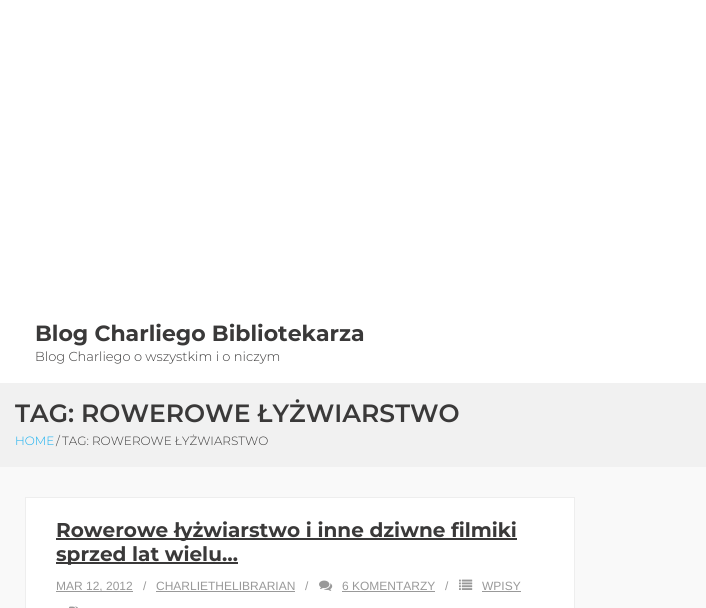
import math
import cairo


def paste(ctx, path, x, y, w, h):
	ctx.save()
	ctx.set_source_surface(cairo.ImageSurface.create_from_png(path), x, y)
	ctx.rectangle(x, y, w, h)
	ctx.fill()
	ctx.restore()

def draw(ctx):
	ctx.set_source_rgb(1, 1, 1)
	ctx.paint()
	ctx.select_font_face('Montserrat', cairo.FONT_SLANT_NORMAL, cairo.FONT_WEIGHT_BOLD)
	ctx.set_font_size(22)
	ctx.set_source_rgb(0.227, 0.224, 0.224)
	ctx.move_to(35, 341)
	ctx.show_text('Blog Charliego Bibliotekarza')
	ctx.select_font_face('Montserrat Light')
	ctx.set_font_size(13)
	ctx.move_to(35, 361)
	ctx.show_text('Blog Charliego o wszystkim i o niczym')
	ctx.set_source_rgb(0.945, 0.945, 0.945)
	ctx.rectangle(0, 383, 706, 84)
	ctx.fill()
	ctx.select_font_face('Montserrat SemiBold')
	ctx.set_font_size(25)
	ctx.set_source_rgb(0.227, 0.224, 0.224)
	ctx.move_to(15, 422)
	ctx.show_text('TAG: ROWEROWE ŁYŻWIARSTWO')
	ctx.select_font_face('Montserrat Light')
	ctx.set_font_size(12)
	ctx.set_source_rgb(0.075, 0.686, 0.941)
	ctx.move_to(15, 445)
	ctx.show_text('HOME')
	ctx.set_source_rgb(0.227, 0.224, 0.224)
	ctx.move_to(56, 445)
	ctx.show_text('/')
	ctx.move_to(62, 445)
	ctx.show_text('TAG: ROWEROWE ŁYŻWIARSTWO')
	ctx.set_source_rgb(0.973, 0.973, 0.973)
	ctx.rectangle(0, 467, 706, 141)
	ctx.fill()
	ctx.set_source_rgb(1, 1, 1)
	ctx.rectangle(25.5, 497.5, 549, 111)
	ctx.fill_preserve()
	ctx.set_source_rgb(0.933, 0.933, 0.933)
	ctx.set_line_width(1)
	ctx.stroke()
	ctx.set_source_rgb(0.227, 0.224, 0.224)
	ctx.rectangle(56, 538, 461, 2)
	ctx.fill()
	ctx.select_font_face('Montserrat', cairo.FONT_SLANT_NORMAL, cairo.FONT_WEIGHT_BOLD)
	ctx.set_font_size(20)
	ctx.move_to(56, 537)
	ctx.show_text('Rowerowe łyżwiarstwo i inne dziwne filmiki')
	ctx.rectangle(56, 562, 182, 2)
	ctx.fill()
	ctx.move_to(56, 561)
	ctx.show_text('sprzed lat wielu…')
	ctx.set_source_rgb(0.6, 0.6, 0.6)
	ctx.rectangle(56, 591, 77, 1)
	ctx.fill()
	ctx.select_font_face('Liberation Sans')
	ctx.set_font_size(12)
	for x, y, s in [
		(56, 590, 'MAR 12, 2012'),
		(143, 590, '/'),
		(156, 590, 'CHARLIETHELIBRARIAN'),
	]:
		ctx.move_to(x, y)
		ctx.show_text(s)
	ctx.rectangle(156, 591, 139, 1)
	ctx.fill()
	ctx.move_to(305, 590)
	ctx.show_text('/')
	paste(ctx, 'media/1.png', 319, 580, 14, 11)
	ctx.move_to(342, 590)
	ctx.show_text('6 KOMENTARZY')
	ctx.rectangle(342, 591, 93, 1)
	ctx.fill()
	ctx.move_to(445, 590)
	ctx.show_text('/')
	paste(ctx, 'media/2.png', 459, 579, 14, 11)
	ctx.move_to(482, 590)
	ctx.show_text('WPISY')
	ctx.rectangle(482, 591, 39, 1)
	ctx.fill()
	paste(ctx, 'media/3.png', 69, 606, 9, 2)


surface = cairo.ImageSurface(cairo.FORMAT_RGB24, 706, 608)
ctx = cairo.Context(surface)
options = cairo.FontOptions()
options.set_hint_metrics(cairo.HINT_METRICS_OFF)
options.set_hint_style(cairo.HINT_STYLE_NONE)
ctx.set_font_options(options)
ctx.set_miter_limit(4)
draw(ctx)
surface.write_to_png('image.png')
